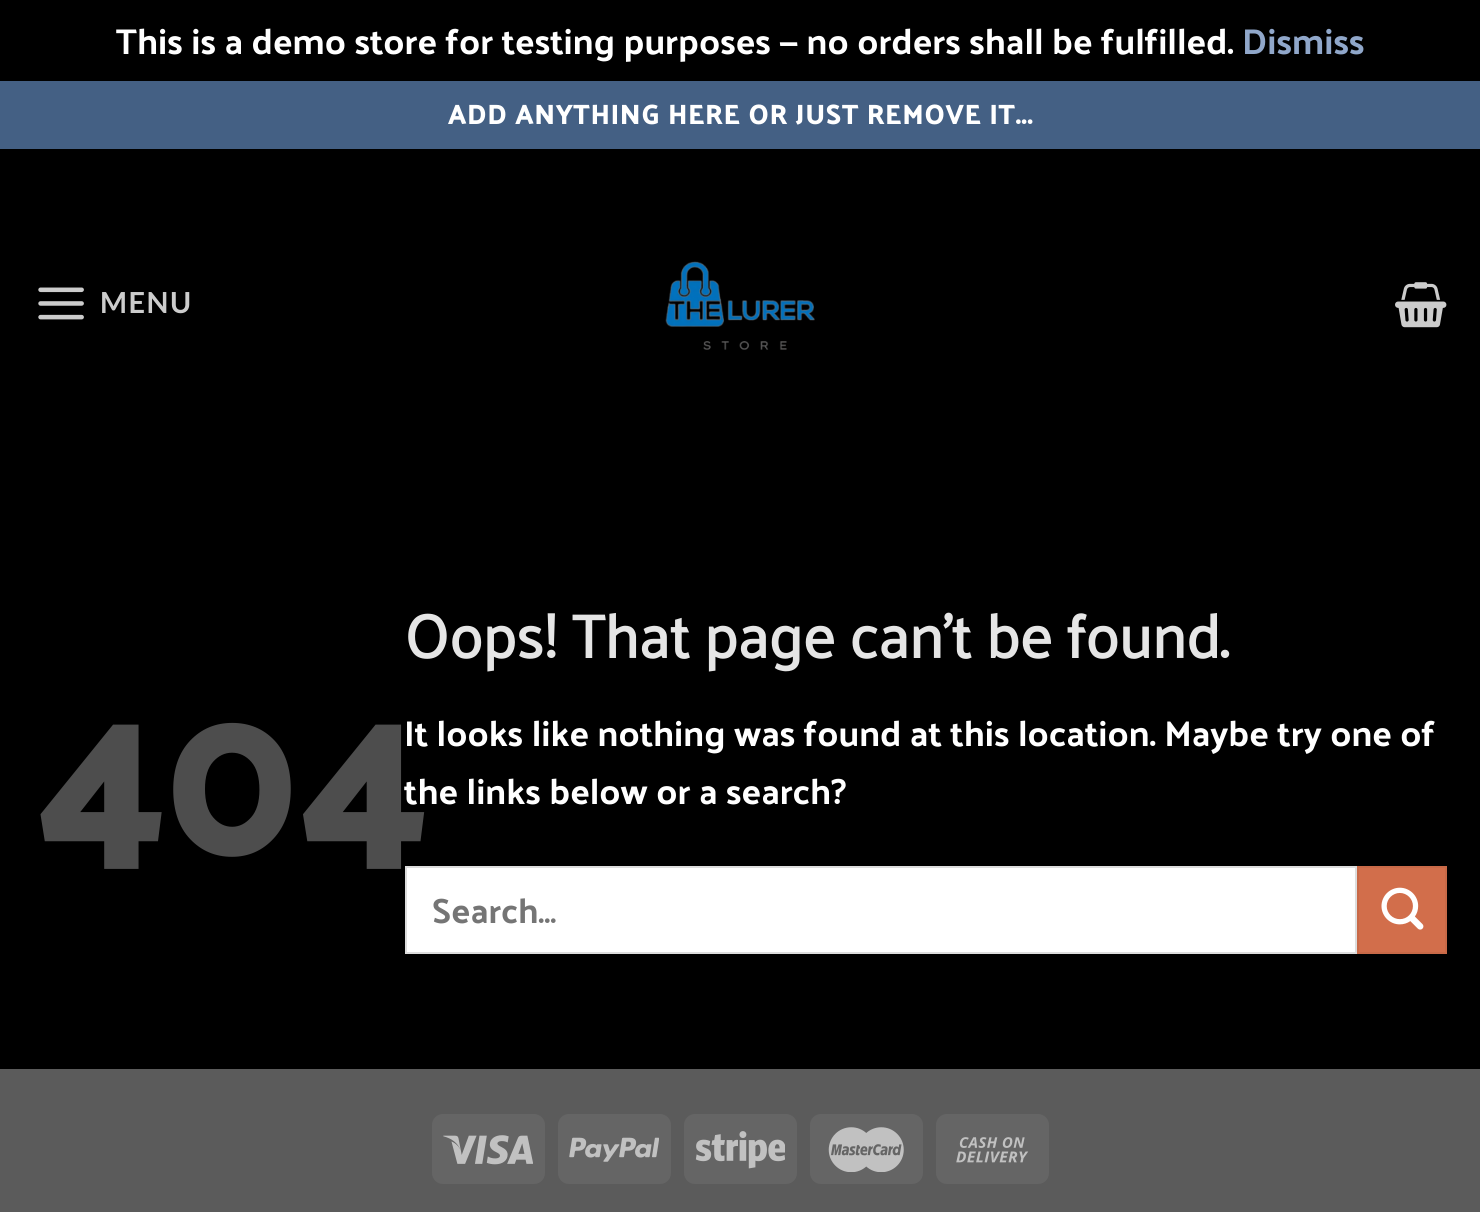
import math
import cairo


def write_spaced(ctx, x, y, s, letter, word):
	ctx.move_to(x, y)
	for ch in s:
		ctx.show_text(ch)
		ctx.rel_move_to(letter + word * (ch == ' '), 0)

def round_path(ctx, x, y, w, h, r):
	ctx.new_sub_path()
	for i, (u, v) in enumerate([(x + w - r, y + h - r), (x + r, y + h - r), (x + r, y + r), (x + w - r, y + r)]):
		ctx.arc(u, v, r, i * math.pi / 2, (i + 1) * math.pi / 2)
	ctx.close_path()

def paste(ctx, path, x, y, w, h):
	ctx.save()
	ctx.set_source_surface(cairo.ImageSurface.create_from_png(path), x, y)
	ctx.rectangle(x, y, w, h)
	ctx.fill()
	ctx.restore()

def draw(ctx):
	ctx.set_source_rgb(0, 0, 0)
	ctx.paint()
	ctx.select_font_face('Palanquin Dark')
	ctx.set_font_size(36)
	ctx.set_source_rgb(1, 1, 1)
	ctx.move_to(116, 54)
	ctx.show_text('This is a demo store for testing purposes — no orders shall be fulfilled.')
	ctx.set_source_rgb(0.565, 0.655, 0.792)
	ctx.move_to(1242, 54)
	ctx.show_text('Dismiss')
	ctx.set_source_rgb(0.267, 0.376, 0.518)
	ctx.rectangle(0, 81, 1480, 68)
	ctx.fill()
	ctx.select_font_face('Palanquin Dark', cairo.FONT_SLANT_NORMAL, cairo.FONT_WEIGHT_BOLD)
	ctx.set_font_size(27)
	ctx.set_source_rgb(1, 1, 1)
	write_spaced(ctx, 448, 124, 'ADD ANYTHING HERE OR JUST REMOVE IT...', 1.35, 0)
	paste(ctx, 'media/1.png', 38, 287, 46, 33)
	ctx.select_font_face('Lato', cairo.FONT_SLANT_NORMAL, cairo.FONT_WEIGHT_BOLD)
	ctx.set_font_size(29)
	ctx.set_source_rgb(0.8, 0.8, 0.8)
	write_spaced(ctx, 100, 313, 'MENU', 1.5, 0)
	paste(ctx, 'media/2.png', 665, 261, 150, 89)
	paste(ctx, 'media/3.png', 1395, 282, 52, 46)
	ctx.select_font_face('Palanquin Dark', cairo.FONT_SLANT_NORMAL, cairo.FONT_WEIGHT_BOLD)
	ctx.set_font_size(216)
	ctx.set_source_rgb(0.302, 0.302, 0.302)
	ctx.move_to(34, 854)
	ctx.show_text('404')
	ctx.select_font_face('Palanquin', cairo.FONT_SLANT_NORMAL, cairo.FONT_WEIGHT_BOLD)
	ctx.set_font_size(61.25)
	ctx.set_source_rgb(0.898, 0.898, 0.898)
	ctx.move_to(404, 658)
	ctx.show_text('Oops! That page can’t be found.')
	ctx.select_font_face('Palanquin Dark')
	ctx.set_font_size(36)
	ctx.set_source_rgb(1, 1, 1)
	ctx.move_to(404, 746)
	ctx.show_text('It looks like nothing was found at this location. Maybe try one of')
	ctx.move_to(404, 804)
	ctx.show_text('the links below or a search?')
	ctx.rectangle(406, 867, 950, 86)
	ctx.fill_preserve()
	ctx.set_source_rgb(0.867, 0.867, 0.867)
	ctx.stroke()
	ctx.set_font_size(35)
	ctx.set_source_rgb(0.459, 0.459, 0.459)
	ctx.move_to(432, 923)
	ctx.show_text('Search…')
	ctx.set_source_rgb(0.824, 0.431, 0.294)
	ctx.rectangle(1358, 867, 88, 86)
	ctx.fill_preserve()
	ctx.set_source_rgb(0.784, 0.412, 0.278)
	ctx.stroke()
	paste(ctx, 'media/4.png', 1381, 887, 43, 43)
	ctx.set_source_rgb(0.357, 0.357, 0.357)
	ctx.rectangle(0, 1069, 1480, 143)
	ctx.fill()
	ctx.set_source_rgb(0.396, 0.396, 0.396)
	round_path(ctx, 432, 1114, 113, 70, 11)
	ctx.fill()
	paste(ctx, 'media/5.png', 443, 1135, 90, 30)
	round_path(ctx, 558, 1114, 113, 70, 11)
	ctx.fill()
	paste(ctx, 'media/6.png', 569, 1137, 90, 25)
	round_path(ctx, 684, 1114, 113, 70, 11)
	ctx.fill()
	paste(ctx, 'media/7.png', 695, 1131, 90, 38)
	round_path(ctx, 810, 1114, 113, 70, 11)
	ctx.fill()
	paste(ctx, 'media/8.png', 828, 1127, 76, 45)
	round_path(ctx, 936, 1114, 113, 70, 11)
	ctx.fill()
	paste(ctx, 'media/9.png', 956, 1137, 73, 26)


surface = cairo.ImageSurface(cairo.FORMAT_RGB24, 1480, 1212)
ctx = cairo.Context(surface)
options = cairo.FontOptions()
options.set_hint_metrics(cairo.HINT_METRICS_OFF)
options.set_hint_style(cairo.HINT_STYLE_NONE)
ctx.set_font_options(options)
ctx.set_miter_limit(4)
draw(ctx)
surface.write_to_png('image.png')
